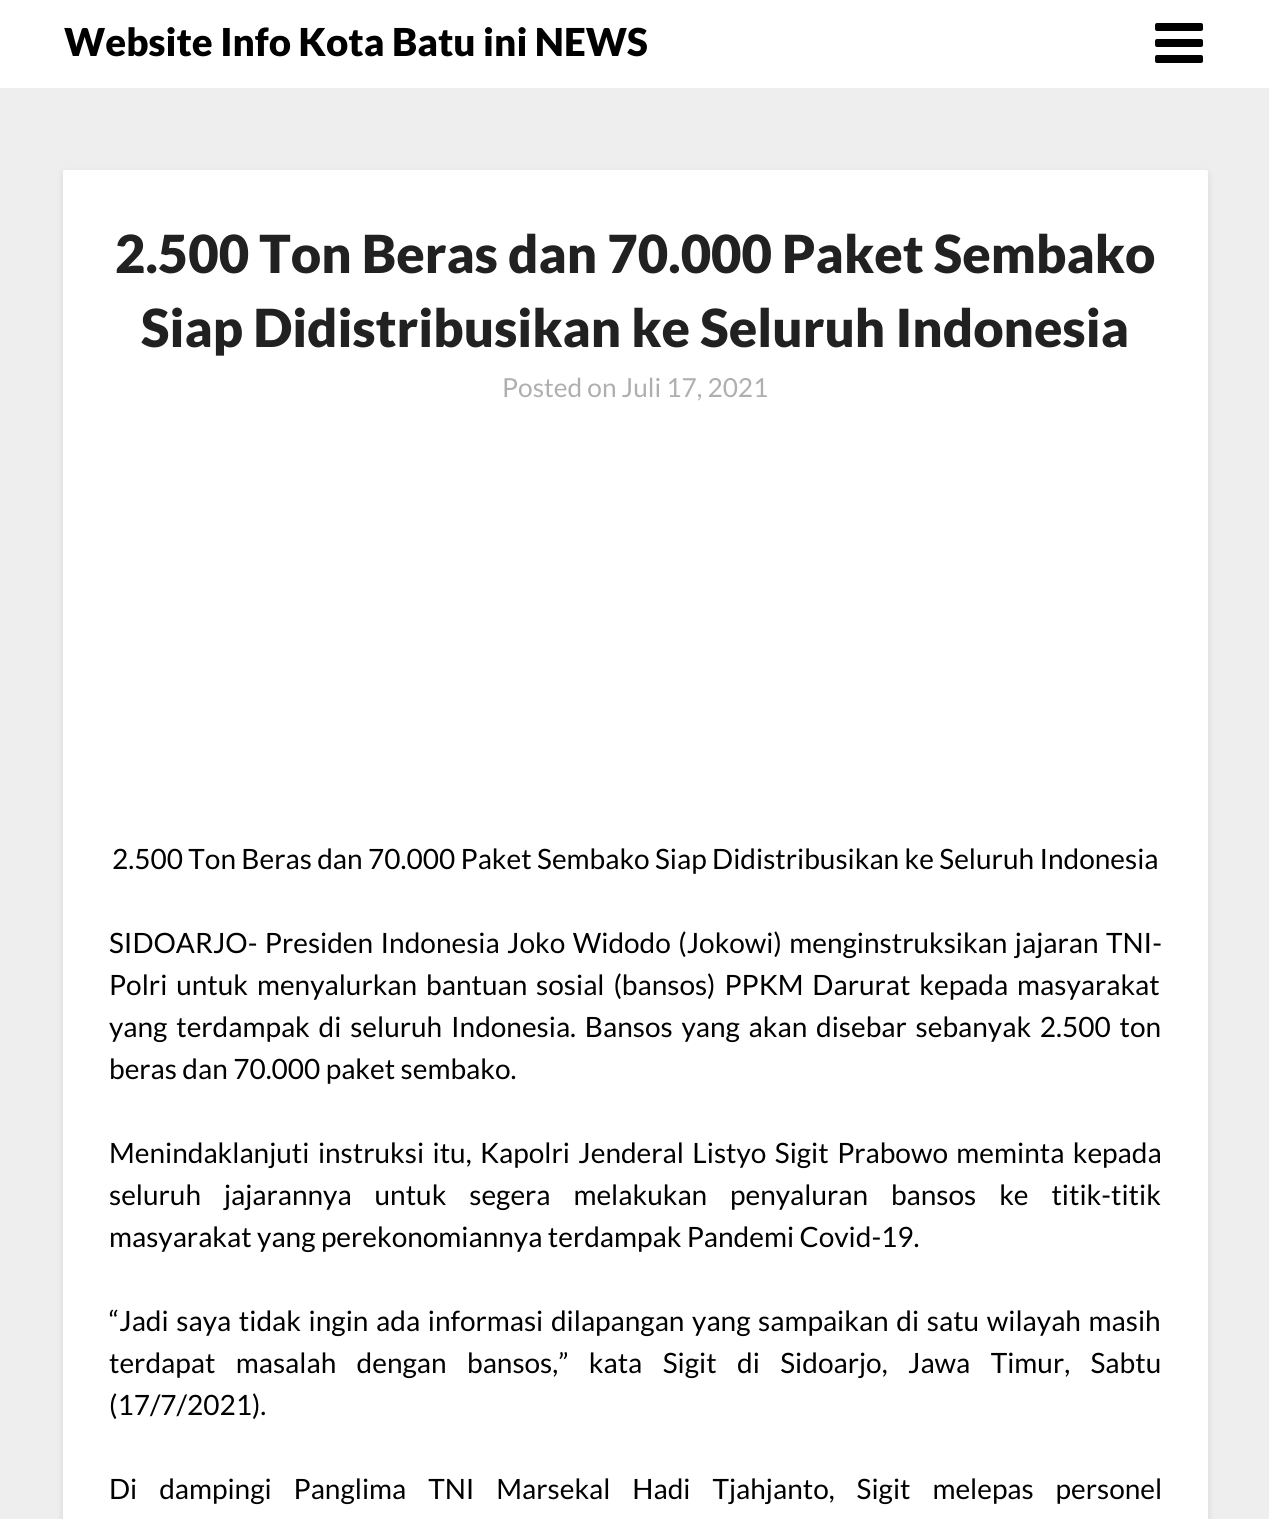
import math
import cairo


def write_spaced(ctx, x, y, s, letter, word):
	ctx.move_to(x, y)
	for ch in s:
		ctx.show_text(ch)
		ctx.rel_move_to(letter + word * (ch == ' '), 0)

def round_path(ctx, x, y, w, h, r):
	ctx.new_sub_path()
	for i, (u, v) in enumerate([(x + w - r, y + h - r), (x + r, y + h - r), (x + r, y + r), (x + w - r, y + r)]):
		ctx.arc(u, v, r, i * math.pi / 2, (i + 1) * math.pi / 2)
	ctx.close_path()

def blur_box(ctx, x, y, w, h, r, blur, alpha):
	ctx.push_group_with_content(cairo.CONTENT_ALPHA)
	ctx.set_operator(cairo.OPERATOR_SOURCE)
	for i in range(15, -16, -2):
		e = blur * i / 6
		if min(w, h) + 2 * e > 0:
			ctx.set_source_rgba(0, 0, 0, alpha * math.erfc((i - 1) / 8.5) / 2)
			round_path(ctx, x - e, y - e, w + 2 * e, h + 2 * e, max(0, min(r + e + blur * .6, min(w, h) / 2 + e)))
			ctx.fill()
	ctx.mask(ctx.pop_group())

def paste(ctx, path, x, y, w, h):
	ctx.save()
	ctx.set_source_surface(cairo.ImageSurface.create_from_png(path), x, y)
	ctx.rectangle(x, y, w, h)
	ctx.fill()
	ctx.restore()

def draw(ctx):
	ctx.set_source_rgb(0.933, 0.933, 0.933)
	ctx.paint()
	ctx.set_source_rgb(1, 1, 1)
	ctx.rectangle(0, 0, 1269, 88)
	ctx.fill()
	ctx.select_font_face('Lato Black')
	ctx.set_font_size(38.5)
	ctx.set_source_rgb(0, 0, 0)
	ctx.move_to(64, 56)
	ctx.show_text('Website Info Kota Batu ini NEWS')
	paste(ctx, 'media/1.png', 1155, 23, 48, 40)
	ctx.set_source_rgb(0, 0, 0)
	blur_box(ctx, 63, 173, 1145, 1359, 2, 3.5, 0.1)
	ctx.set_source_rgb(1, 1, 1)
	round_path(ctx, 63, 170, 1145, 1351, 2)
	ctx.fill()
	ctx.set_font_size(52.5)
	ctx.set_source_rgb(0.129, 0.129, 0.129)
	ctx.move_to(115, 273)
	ctx.show_text('2.500 Ton Beras dan 70.000 Paket Sembako')
	ctx.move_to(141, 347)
	ctx.show_text('Siap Didistribusikan ke Seluruh Indonesia')
	ctx.select_font_face('Lato')
	ctx.set_font_size(26.25)
	ctx.set_source_rgb(0.686, 0.686, 0.686)
	ctx.move_to(502, 397)
	ctx.show_text('Posted on Juli 17, 2021')
	ctx.set_font_size(28)
	ctx.set_source_rgb(0, 0, 0)
	ctx.move_to(112, 869)
	ctx.show_text('2.500 Ton Beras dan 70.000 Paket Sembako Siap Didistribusikan ke Seluruh Indonesia')
	write_spaced(ctx, 109, 953, 'SIDOARJO- Presiden Indonesia Joko Widodo (Jokowi) menginstruksikan jajaran TNI-', 0, 2)
	write_spaced(ctx, 109, 995, 'Polri untuk menyalurkan bantuan sosial (bansos) PPKM Darurat kepada masyarakat', 0, 3.5)
	write_spaced(ctx, 109, 1037, 'yang terdampak di seluruh Indonesia. Bansos yang akan disebar sebanyak 2.500 ton', 0, 3.4)
	ctx.move_to(109, 1079)
	ctx.show_text('beras dan 70.000 paket sembako.')
	write_spaced(ctx, 109, 1163, 'Menindaklanjuti instruksi itu, Kapolri Jenderal Listyo Sigit Prabowo meminta kepada', 0, 3)
	write_spaced(ctx, 109, 1205, 'seluruh jajarannya untuk segera melakukan penyaluran bansos ke titik-titik', 0, 17.5)
	ctx.move_to(109, 1247)
	ctx.show_text('masyarakat yang perekonomiannya terdampak Pandemi Covid-19.')
	write_spaced(ctx, 109, 1331, '“Jadi saya tidak ingin ada informasi dilapangan yang sampaikan di satu wilayah masih', 0, 2.25)
	write_spaced(ctx, 109, 1373, 'terdapat masalah dengan bansos,” kata Sigit di Sidoarjo, Jawa Timur, Sabtu', 0, 15)
	ctx.move_to(109, 1415)
	ctx.show_text('(17/7/2021).')
	write_spaced(ctx, 109, 1499, 'Di dampingi Panglima TNI Marsekal Hadi Tjahjanto, Sigit melepas personel', 0, 16.5)


surface = cairo.ImageSurface(cairo.FORMAT_RGB24, 1269, 1519)
ctx = cairo.Context(surface)
options = cairo.FontOptions()
options.set_hint_metrics(cairo.HINT_METRICS_OFF)
options.set_hint_style(cairo.HINT_STYLE_NONE)
ctx.set_font_options(options)
ctx.set_miter_limit(4)
draw(ctx)
surface.write_to_png('image.png')
